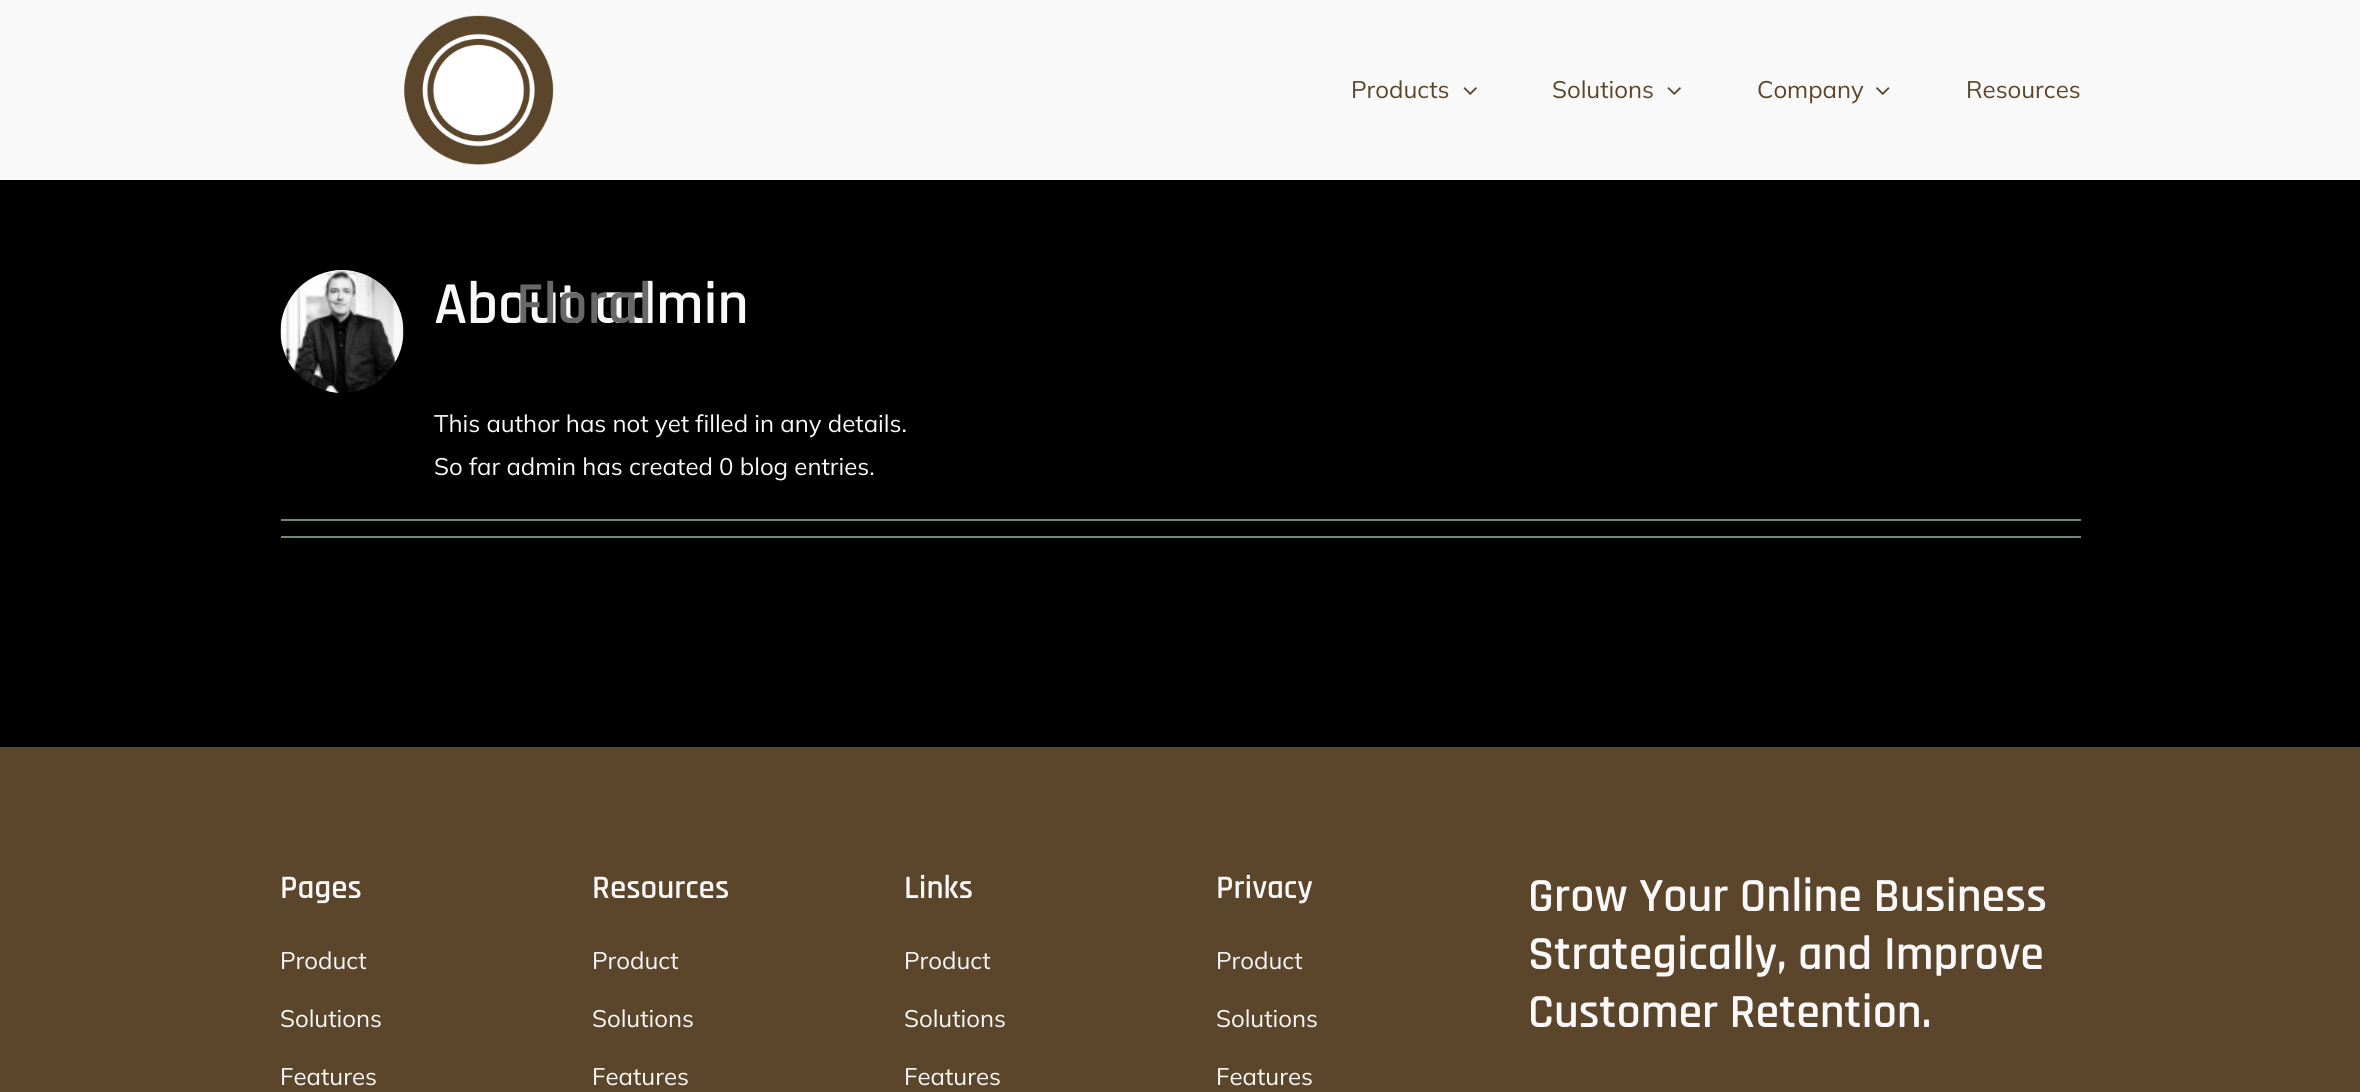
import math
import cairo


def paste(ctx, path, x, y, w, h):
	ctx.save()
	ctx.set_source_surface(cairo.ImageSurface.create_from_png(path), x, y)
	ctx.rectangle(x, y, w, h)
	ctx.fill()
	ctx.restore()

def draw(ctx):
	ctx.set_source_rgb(0, 0, 0)
	ctx.paint()
	ctx.set_source_rgb(0.973, 0.976, 0.98)
	ctx.rectangle(0, 0, 2360, 180)
	ctx.fill()
	paste(ctx, 'media/1.png', 403, 15, 151, 150)
	ctx.select_font_face('Mulish')
	ctx.set_font_size(24)
	ctx.set_source_rgb(0.361, 0.275, 0.169)
	ctx.move_to(1757, 98)
	ctx.show_text('Company')
	paste(ctx, 'media/2.png', 1876, 87, 14, 8)
	ctx.select_font_face('Rajdhani SemiBold')
	ctx.set_font_size(60)
	ctx.set_source_rgb(0.973, 0.976, 0.98)
	ctx.move_to(434, 323)
	ctx.show_text('About admin')
	ctx.set_source_rgb(0.404, 0.408, 0.408)
	ctx.move_to(516, 323)
	ctx.show_text('Floral')
	ctx.select_font_face('Mulish')
	ctx.set_font_size(24)
	ctx.set_source_rgb(0.361, 0.275, 0.169)
	ctx.move_to(1351, 98)
	ctx.show_text('Products')
	paste(ctx, 'media/3.png', 1463, 87, 14, 8)
	ctx.move_to(1552, 98)
	ctx.show_text('Solutions')
	paste(ctx, 'media/3.png', 1667, 87, 14, 8)
	ctx.move_to(1966, 98)
	ctx.show_text('Resources')
	paste(ctx, 'media/4.png', 280, 270, 124, 123)
	ctx.set_source_rgb(0.973, 0.976, 0.98)
	ctx.move_to(434, 432)
	ctx.show_text('This author has not yet filled in any details.')
	ctx.move_to(434, 475)
	ctx.show_text('So far admin has created 0 blog entries.')
	ctx.set_source_rgb(0.416, 0.549, 0.427)
	ctx.rectangle(281, 519, 1800, 2)
	ctx.rectangle(281, 536, 1800, 2)
	ctx.fill()
	ctx.set_source_rgb(0.361, 0.275, 0.169)
	ctx.rectangle(0, 747, 2360, 345)
	ctx.fill()
	ctx.select_font_face('Rajdhani SemiBold')
	ctx.set_font_size(33)
	ctx.set_source_rgb(0.973, 0.976, 0.98)
	ctx.move_to(280, 898)
	ctx.show_text('Pages')
	ctx.select_font_face('Mulish')
	ctx.set_font_size(24)
	for x, y, s in [
		(280, 969, 'Product'),
		(280, 1027, 'Solutions'),
		(280, 1085, 'Features'),
	]:
		ctx.move_to(x, y)
		ctx.show_text(s)
	ctx.select_font_face('Rajdhani SemiBold')
	ctx.set_font_size(33)
	ctx.move_to(592, 898)
	ctx.show_text('Resources')
	ctx.select_font_face('Mulish')
	ctx.set_font_size(24)
	for x, y, s in [
		(592, 969, 'Product'),
		(592, 1027, 'Solutions'),
		(592, 1085, 'Features'),
	]:
		ctx.move_to(x, y)
		ctx.show_text(s)
	ctx.select_font_face('Rajdhani SemiBold')
	ctx.set_font_size(33)
	ctx.move_to(904, 898)
	ctx.show_text('Links')
	ctx.select_font_face('Mulish')
	ctx.set_font_size(24)
	for x, y, s in [
		(904, 969, 'Product'),
		(904, 1027, 'Solutions'),
		(904, 1085, 'Features'),
	]:
		ctx.move_to(x, y)
		ctx.show_text(s)
	ctx.select_font_face('Rajdhani SemiBold')
	ctx.set_font_size(33)
	ctx.move_to(1216, 898)
	ctx.show_text('Privacy')
	ctx.select_font_face('Mulish')
	ctx.set_font_size(24)
	for x, y, s in [
		(1216, 969, 'Product'),
		(1216, 1027, 'Solutions'),
		(1216, 1085, 'Features'),
	]:
		ctx.move_to(x, y)
		ctx.show_text(s)
	ctx.select_font_face('Rajdhani SemiBold')
	ctx.set_font_size(48)
	for x, y, s in [
		(1528, 911, 'Grow Your Online Business'),
		(1528, 969, 'Strategically, and Improve'),
		(1528, 1027, 'Customer Retention.'),
	]:
		ctx.move_to(x, y)
		ctx.show_text(s)


surface = cairo.ImageSurface(cairo.FORMAT_RGB24, 2360, 1092)
ctx = cairo.Context(surface)
options = cairo.FontOptions()
options.set_hint_metrics(cairo.HINT_METRICS_OFF)
options.set_hint_style(cairo.HINT_STYLE_NONE)
ctx.set_font_options(options)
ctx.set_miter_limit(4)
draw(ctx)
surface.write_to_png('image.png')
